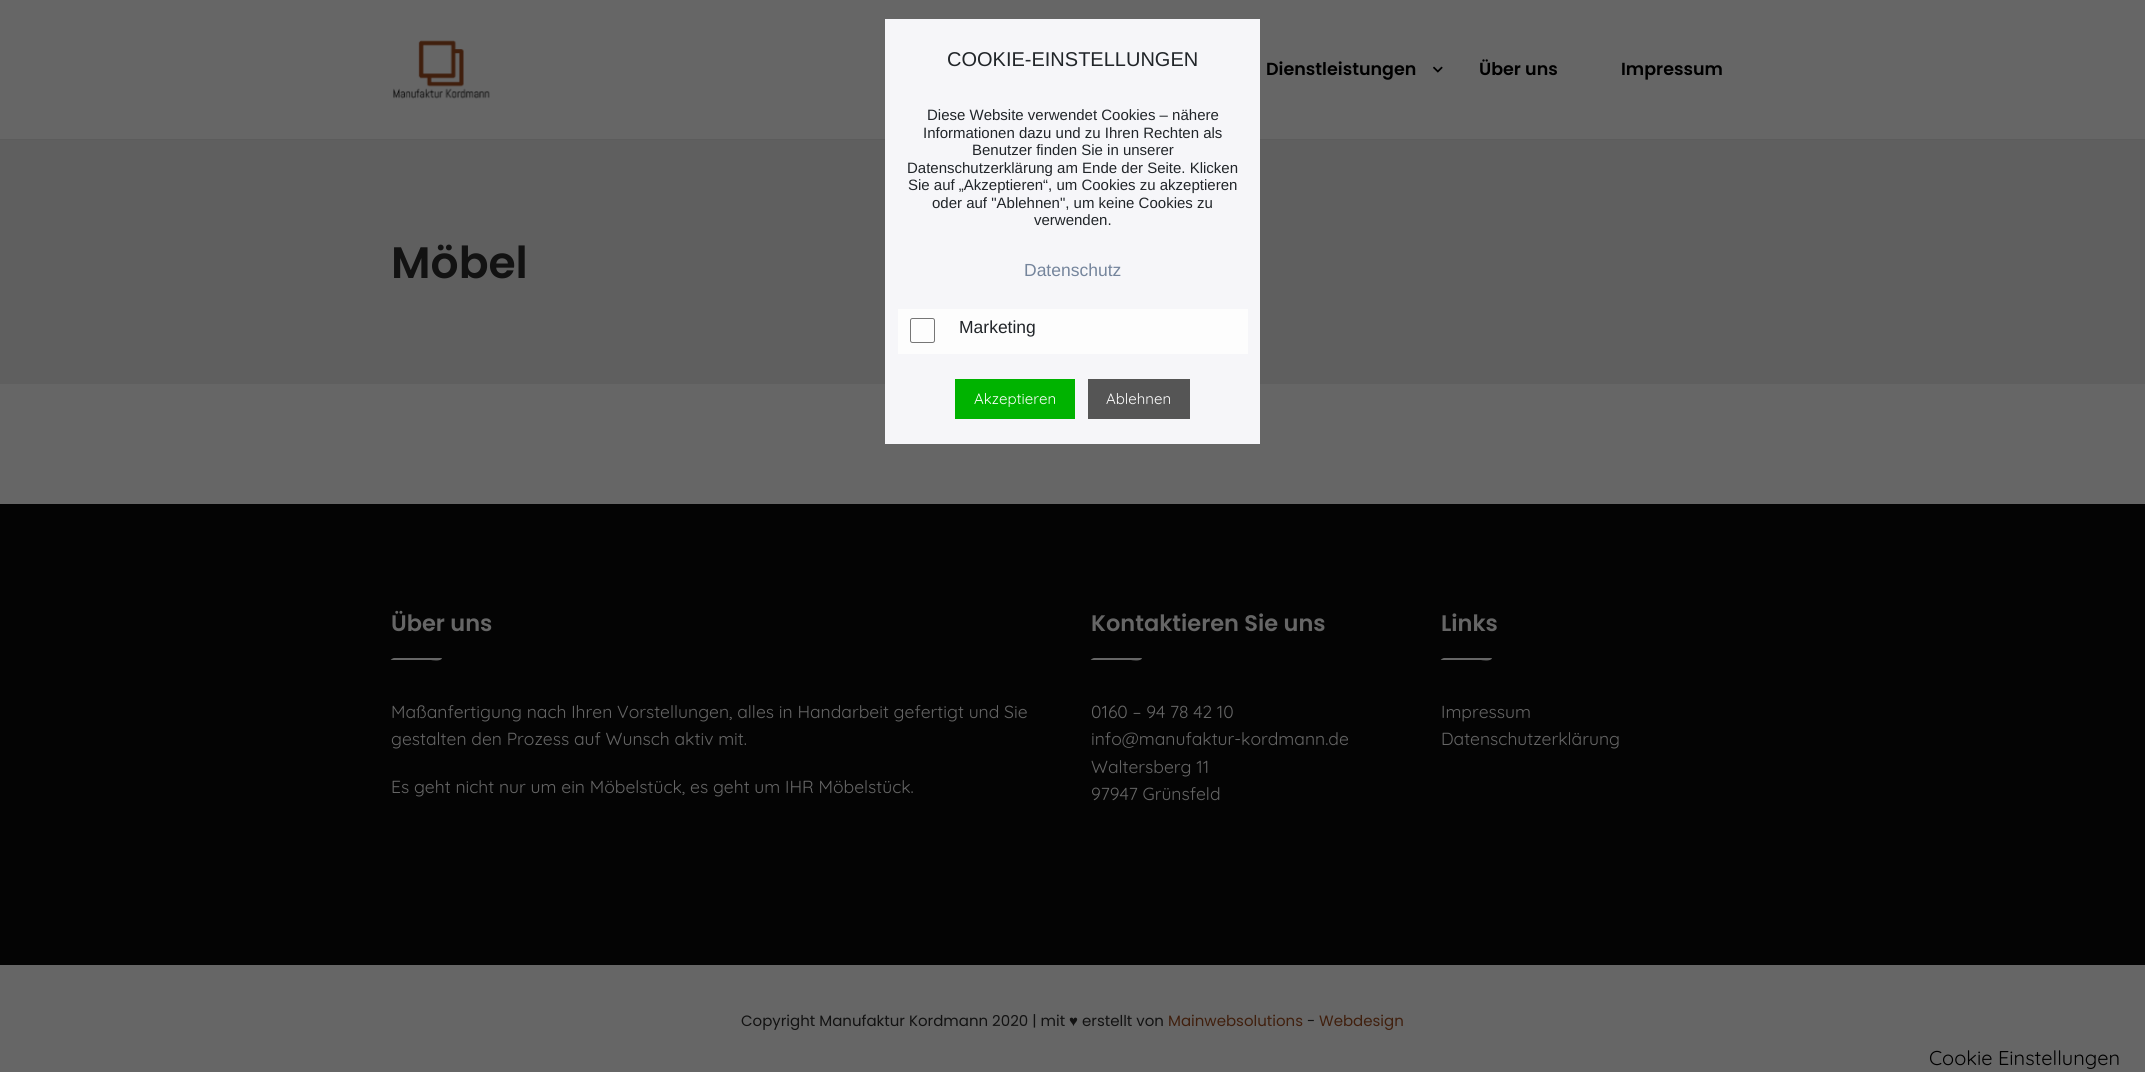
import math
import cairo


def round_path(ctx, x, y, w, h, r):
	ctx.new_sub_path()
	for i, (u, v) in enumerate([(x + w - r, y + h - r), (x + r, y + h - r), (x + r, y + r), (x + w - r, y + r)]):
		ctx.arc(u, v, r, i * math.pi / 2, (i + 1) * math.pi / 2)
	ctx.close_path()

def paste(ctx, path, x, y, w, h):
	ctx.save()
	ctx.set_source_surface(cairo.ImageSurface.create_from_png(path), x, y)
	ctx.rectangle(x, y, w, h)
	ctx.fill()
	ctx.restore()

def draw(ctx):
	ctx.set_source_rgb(0.4, 0.4, 0.4)
	ctx.paint()
	ctx.set_source_rgb(0.361, 0.361, 0.361)
	ctx.rectangle(0, 139, 2145, 1)
	ctx.fill()
	ctx.set_source_rgb(0.373, 0.373, 0.373)
	ctx.rectangle(0, 140, 2145, 244)
	ctx.fill()
	ctx.set_source_rgb(0.961, 0.961, 0.973)
	ctx.rectangle(885, 19, 375, 425)
	ctx.fill()
	ctx.select_font_face('Liberation Sans')
	ctx.set_font_size(20)
	ctx.set_source_rgb(0.129, 0.145, 0.161)
	ctx.move_to(947, 66)
	ctx.show_text('COOKIE-EINSTELLUNGEN')
	ctx.set_font_size(15)
	for x, y, s in [
		(927, 120, 'Diese Website verwendet Cookies – nähere'),
		(923, 138, 'Informationen dazu und zu Ihren Rechten als'),
		(972, 155, 'Benutzer finden Sie in unserer'),
		(907, 173, 'Datenschutzerklärung am Ende der Seite. Klicken'),
		(908, 190, 'Sie auf „Akzeptieren“, um Cookies zu akzeptieren'),
		(932, 208, 'oder auf "Ablehnen", um keine Cookies zu'),
		(1034, 225, 'verwenden.'),
	]:
		ctx.move_to(x, y)
		ctx.show_text(s)
	ctx.set_font_size(17.5)
	ctx.set_source_rgb(0.459, 0.522, 0.612)
	ctx.move_to(1024, 276)
	ctx.show_text('Datenschutz')
	ctx.set_source_rgb(0.992, 0.992, 0.992)
	ctx.rectangle(898, 309, 350, 45)
	ctx.fill()
	round_path(ctx, 910.5, 318.5, 24, 24, 2)
	ctx.set_source_rgb(0.463, 0.463, 0.463)
	ctx.set_line_width(1)
	ctx.stroke()
	ctx.set_source_rgb(0.129, 0.145, 0.161)
	ctx.move_to(959, 333)
	ctx.show_text('Marketing')
	ctx.set_source_rgb(0, 0.702, 0)
	ctx.rectangle(955, 379, 120, 40)
	ctx.fill()
	ctx.select_font_face('Quicksand')
	ctx.set_font_size(15)
	ctx.set_source_rgb(1, 1, 1)
	ctx.move_to(974, 404)
	ctx.show_text('Akzeptieren')
	ctx.set_source_rgb(0.333, 0.333, 0.333)
	ctx.rectangle(1088, 379, 102, 40)
	ctx.fill()
	ctx.set_source_rgb(1, 1, 1)
	ctx.move_to(1106, 404)
	ctx.show_text('Ablehnen')
	paste(ctx, 'media/1.png', 393, 40, 97, 59)
	ctx.select_font_face('Poppins SemiBold')
	ctx.set_font_size(17.5)
	ctx.set_source_rgb(0, 0, 0)
	ctx.move_to(1266, 75)
	ctx.show_text('Dienstleistungen')
	paste(ctx, 'media/2.png', 1433, 66, 10, 7)
	ctx.move_to(1479, 75)
	ctx.show_text('Über uns')
	ctx.move_to(1621, 75)
	ctx.show_text('Impressum')
	ctx.set_font_size(44)
	ctx.set_source_rgb(0.071, 0.071, 0.071)
	ctx.move_to(391, 278)
	ctx.show_text('Möbel')
	ctx.set_source_rgb(0.016, 0.016, 0.016)
	ctx.rectangle(0, 504, 2145, 461)
	ctx.fill()
	ctx.set_font_size(22.5)
	ctx.set_source_rgb(0.4, 0.4, 0.4)
	ctx.move_to(391, 631)
	ctx.show_text('Über uns')
	ctx.new_path()
	ctx.move_to(394, 658)
	ctx.line_to(441, 658)
	ctx.line_to(442, 658)
	ctx.curve_to(441, 662, 431, 660, 431, 660)
	ctx.line_to(391, 660)
	ctx.curve_to(390, 660, 393, 658, 394, 658)
	ctx.close_path()
	ctx.fill()
	ctx.select_font_face('Quicksand')
	ctx.set_font_size(17.5)
	for x, y, s in [
		(391, 718, 'Maßanfertigung nach Ihren Vorstellungen, alles in Handarbeit gefertigt und Sie'),
		(391, 745, 'gestalten den Prozess auf Wunsch aktiv mit.'),
		(391, 793, 'Es geht nicht nur um ein Möbelstück, es geht um IHR Möbelstück.'),
	]:
		ctx.move_to(x, y)
		ctx.show_text(s)
	ctx.select_font_face('Poppins SemiBold')
	ctx.set_font_size(22.5)
	ctx.move_to(1091, 631)
	ctx.show_text('Kontaktieren Sie uns')
	ctx.new_path()
	ctx.move_to(1094, 658)
	ctx.line_to(1141, 658)
	ctx.line_to(1142, 658)
	ctx.curve_to(1141, 662, 1131, 660, 1131, 660)
	ctx.line_to(1091, 660)
	ctx.curve_to(1090, 660, 1093, 658, 1094, 658)
	ctx.close_path()
	ctx.fill()
	ctx.select_font_face('Quicksand')
	ctx.set_font_size(17.5)
	for x, y, s in [
		(1091, 718, '0160 – 94 78 42 10'),
		(1091, 745, 'info@manufaktur-kordmann.de'),
		(1091, 773, 'Waltersberg 11'),
		(1091, 800, '97947 Grünsfeld'),
	]:
		ctx.move_to(x, y)
		ctx.show_text(s)
	ctx.select_font_face('Poppins SemiBold')
	ctx.set_font_size(22.5)
	ctx.move_to(1441, 631)
	ctx.show_text('Links')
	ctx.new_path()
	ctx.move_to(1444, 658)
	ctx.line_to(1491, 658)
	ctx.line_to(1492, 658)
	ctx.curve_to(1491, 662, 1481, 660, 1481, 660)
	ctx.line_to(1441, 660)
	ctx.curve_to(1440, 660, 1443, 658, 1444, 658)
	ctx.close_path()
	ctx.fill()
	ctx.select_font_face('Quicksand')
	ctx.set_font_size(17.5)
	ctx.move_to(1441, 718)
	ctx.show_text('Impressum')
	ctx.move_to(1441, 745)
	ctx.show_text('Datenschutzerklärung')
	ctx.select_font_face('Poppins')
	ctx.set_font_size(15)
	ctx.set_source_rgb(0.071, 0.071, 0.071)
	ctx.move_to(741, 1026)
	ctx.show_text('Copyright Manufaktur Kordmann 2020 | mit')
	ctx.select_font_face('Liberation Serif')
	ctx.move_to(1069, 1026)
	ctx.show_text('♥')
	ctx.select_font_face('Poppins')
	ctx.move_to(1082, 1026)
	ctx.show_text('erstellt von')
	ctx.set_source_rgb(0.251, 0.122, 0.051)
	ctx.move_to(1168, 1026)
	ctx.show_text('Mainwebsolutions')
	ctx.set_source_rgb(0.071, 0.071, 0.071)
	ctx.move_to(1307, 1026)
	ctx.show_text('-')
	ctx.set_source_rgb(0.251, 0.122, 0.051)
	ctx.move_to(1319, 1026)
	ctx.show_text('Webdesign')
	ctx.select_font_face('Quicksand')
	ctx.set_font_size(20)
	ctx.set_source_rgb(0, 0, 0)
	ctx.move_to(1929, 1065)
	ctx.show_text('Cookie Einstellungen')


surface = cairo.ImageSurface(cairo.FORMAT_RGB24, 2145, 1072)
ctx = cairo.Context(surface)
options = cairo.FontOptions()
options.set_hint_metrics(cairo.HINT_METRICS_OFF)
options.set_hint_style(cairo.HINT_STYLE_NONE)
ctx.set_font_options(options)
ctx.set_miter_limit(4)
draw(ctx)
surface.write_to_png('image.png')
